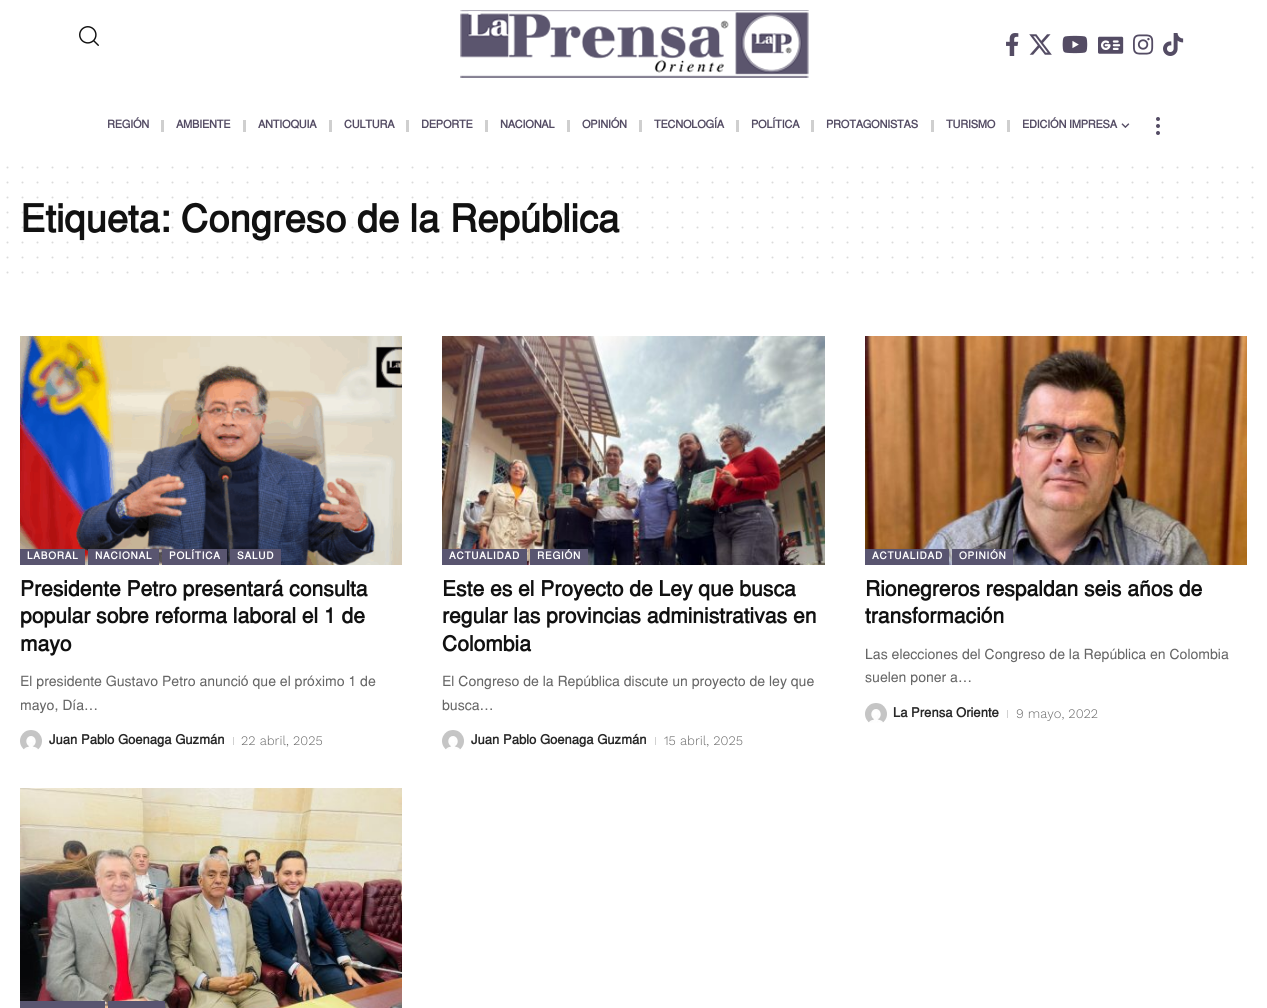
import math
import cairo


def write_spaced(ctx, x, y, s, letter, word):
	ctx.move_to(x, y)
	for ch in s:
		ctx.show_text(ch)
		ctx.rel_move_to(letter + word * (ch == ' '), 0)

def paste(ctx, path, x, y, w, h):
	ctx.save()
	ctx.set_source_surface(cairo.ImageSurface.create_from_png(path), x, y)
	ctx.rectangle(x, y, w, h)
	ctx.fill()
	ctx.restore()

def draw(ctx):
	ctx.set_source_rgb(1, 1, 1)
	ctx.paint()
	paste(ctx, 'media/1.png', 79, 26, 20, 20)
	paste(ctx, 'media/2.png', 460, 10, 349, 68)
	paste(ctx, 'media/3.png', 1006, 33, 13, 23)
	paste(ctx, 'media/4.png', 1029, 34, 23, 21)
	paste(ctx, 'media/5.png', 1062, 35, 26, 19)
	paste(ctx, 'media/6.png', 1098, 36, 26, 18)
	paste(ctx, 'media/7.png', 1133, 34, 21, 21)
	paste(ctx, 'media/8.png', 1163, 33, 21, 23)
	ctx.select_font_face('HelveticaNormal', cairo.FONT_SLANT_NORMAL, cairo.FONT_WEIGHT_BOLD)
	ctx.set_font_size(11)
	ctx.set_source_rgb(0.329, 0.298, 0.392)
	write_spaced(ctx, 107, 128, 'REGIÓN', -0.25, 0)
	ctx.set_source_rgb(0.812, 0.812, 0.812)
	ctx.rectangle(161, 120, 3, 12)
	ctx.fill()
	ctx.set_source_rgb(0.329, 0.298, 0.392)
	write_spaced(ctx, 176, 128, 'AMBIENTE', -0.25, 0)
	ctx.set_source_rgb(0.812, 0.812, 0.812)
	ctx.rectangle(243, 120, 3, 12)
	ctx.fill()
	ctx.set_source_rgb(0.329, 0.298, 0.392)
	write_spaced(ctx, 258, 128, 'ANTIOQUIA', -0.25, 0)
	ctx.set_source_rgb(0.812, 0.812, 0.812)
	ctx.rectangle(329, 120, 3, 12)
	ctx.fill()
	ctx.set_source_rgb(0.329, 0.298, 0.392)
	write_spaced(ctx, 344, 128, 'CULTURA', -0.25, 0)
	ctx.set_source_rgb(0.812, 0.812, 0.812)
	ctx.rectangle(406, 120, 3, 12)
	ctx.fill()
	ctx.set_source_rgb(0.329, 0.298, 0.392)
	write_spaced(ctx, 421, 128, 'DEPORTE', -0.25, 0)
	ctx.set_source_rgb(0.812, 0.812, 0.812)
	ctx.rectangle(485, 120, 3, 12)
	ctx.fill()
	ctx.set_source_rgb(0.329, 0.298, 0.392)
	write_spaced(ctx, 500, 128, 'NACIONAL', -0.25, 0)
	ctx.set_source_rgb(0.812, 0.812, 0.812)
	ctx.rectangle(567, 120, 3, 12)
	ctx.fill()
	ctx.set_source_rgb(0.329, 0.298, 0.392)
	write_spaced(ctx, 582, 128, 'OPINIÓN', -0.25, 0)
	ctx.set_source_rgb(0.812, 0.812, 0.812)
	ctx.rectangle(639, 120, 3, 12)
	ctx.fill()
	ctx.set_source_rgb(0.329, 0.298, 0.392)
	write_spaced(ctx, 654, 128, 'TECNOLOGÍA', -0.25, 0)
	ctx.set_source_rgb(0.812, 0.812, 0.812)
	ctx.rectangle(736, 120, 3, 12)
	ctx.fill()
	ctx.set_source_rgb(0.329, 0.298, 0.392)
	write_spaced(ctx, 751, 128, 'POLÍTICA', -0.25, 0)
	ctx.set_source_rgb(0.812, 0.812, 0.812)
	ctx.rectangle(811, 120, 3, 12)
	ctx.fill()
	ctx.set_source_rgb(0.329, 0.298, 0.392)
	write_spaced(ctx, 826, 128, 'PROTAGONISTAS', -0.25, 0)
	ctx.set_source_rgb(0.812, 0.812, 0.812)
	ctx.rectangle(931, 120, 3, 12)
	ctx.fill()
	ctx.set_source_rgb(0.329, 0.298, 0.392)
	write_spaced(ctx, 946, 128, 'TURISMO', -0.25, 0)
	ctx.set_source_rgb(0.812, 0.812, 0.812)
	ctx.rectangle(1007, 120, 3, 12)
	ctx.fill()
	ctx.set_source_rgb(0.329, 0.298, 0.392)
	write_spaced(ctx, 1022, 128, 'EDICIÓN IMPRESA', -0.25, 0)
	paste(ctx, 'media/9.png', 1121, 123, 9, 5)
	ctx.arc(1158, 119, 2, 0, 2 * math.pi)
	ctx.fill()
	ctx.arc(1158, 126, 2, 0, 2 * math.pi)
	ctx.fill()
	ctx.arc(1158, 133, 2, 0, 2 * math.pi)
	ctx.fill()
	ctx.new_path()
	ctx.move_to(7.5, 167.5)
	ctx.line_to(1252.7, 167.5)
	ctx.set_source_rgb(0.859, 0.859, 0.859)
	ctx.set_line_cap(cairo.LINE_CAP_ROUND)
	ctx.set_dash([0, 15])
	ctx.stroke()
	ctx.new_path()
	ctx.move_to(7.5, 182.5)
	ctx.line_to(1252.7, 182.5)
	ctx.stroke()
	ctx.new_path()
	ctx.move_to(7.5, 197.5)
	ctx.line_to(1252.7, 197.5)
	ctx.stroke()
	ctx.set_font_size(38)
	ctx.set_source_rgb(0.067, 0.067, 0.067)
	ctx.move_to(20, 232)
	ctx.show_text('Etiqueta: Congreso de la República')
	ctx.new_path()
	ctx.move_to(7.5, 212.5)
	ctx.line_to(1252.7, 212.5)
	ctx.set_source_rgba(0.067, 0.067, 0.067, 0.15)
	ctx.stroke()
	ctx.new_path()
	ctx.move_to(7.5, 227.5)
	ctx.line_to(1252.7, 227.5)
	ctx.stroke()
	ctx.new_path()
	ctx.move_to(7.5, 242.5)
	ctx.line_to(1252.7, 242.5)
	ctx.set_source_rgb(0.859, 0.859, 0.859)
	ctx.stroke()
	ctx.new_path()
	ctx.move_to(7.5, 257.5)
	ctx.line_to(1252.7, 257.5)
	ctx.stroke()
	ctx.new_path()
	ctx.move_to(7.5, 272.5)
	ctx.line_to(1252.7, 272.5)
	ctx.stroke()
	paste(ctx, 'media/10.png', 20, 336, 382, 229)
	ctx.set_source_rgb(0.349, 0.333, 0.439)
	ctx.rectangle(20, 549, 65, 16)
	ctx.fill()
	ctx.set_font_size(10)
	ctx.set_source_rgb(1, 1, 1)
	write_spaced(ctx, 27, 559, 'LABORAL', 0.75, 0)
	ctx.set_source_rgb(0.349, 0.333, 0.439)
	ctx.rectangle(88, 549, 71, 16)
	ctx.fill()
	ctx.set_source_rgb(1, 1, 1)
	write_spaced(ctx, 95, 559, 'NACIONAL', 0.75, 0)
	ctx.set_source_rgb(0.349, 0.333, 0.439)
	ctx.rectangle(162, 549, 65, 16)
	ctx.fill()
	ctx.set_source_rgb(1, 1, 1)
	write_spaced(ctx, 169, 559, 'POLÍTICA', 0.75, 0)
	ctx.set_source_rgb(0.349, 0.333, 0.439)
	ctx.rectangle(230, 549, 51, 16)
	ctx.fill()
	ctx.set_source_rgb(1, 1, 1)
	write_spaced(ctx, 237, 559, 'SALUD', 0.75, 0)
	ctx.set_font_size(21)
	ctx.set_source_rgb(0.067, 0.067, 0.067)
	for x, y, s in [
		(20, 596, 'Presidente Petro presentará consulta'),
		(20, 623, 'popular sobre reforma laboral el 1 de'),
		(20, 651, 'mayo'),
	]:
		ctx.move_to(x, y)
		ctx.show_text(s)
	ctx.select_font_face('HelveticaNormal')
	ctx.set_font_size(14)
	ctx.set_source_rgb(0.4, 0.4, 0.4)
	ctx.move_to(20, 686)
	ctx.show_text('El presidente Gustavo Petro anunció que el próximo 1 de')
	ctx.move_to(20, 710)
	ctx.show_text('mayo, Día…')
	paste(ctx, 'media/11.png', 20, 730, 22, 20)
	ctx.select_font_face('HelveticaNormal', cairo.FONT_SLANT_NORMAL, cairo.FONT_WEIGHT_BOLD)
	ctx.set_font_size(13)
	ctx.set_source_rgb(0.157, 0.157, 0.157)
	ctx.move_to(49, 744)
	ctx.show_text('Juan Pablo Goenaga Guzmán')
	ctx.set_source_rgb(0.82, 0.82, 0.82)
	ctx.rectangle(233, 737, 1, 8)
	ctx.fill()
	ctx.select_font_face('Work Sans Light')
	ctx.set_source_rgb(0.4, 0.4, 0.4)
	ctx.move_to(241, 745)
	ctx.show_text('22 abril, 2025')
	paste(ctx, 'media/12.png', 442, 336, 383, 229)
	ctx.set_source_rgb(0.349, 0.333, 0.439)
	ctx.rectangle(442, 549, 85, 16)
	ctx.fill()
	ctx.select_font_face('HelveticaNormal', cairo.FONT_SLANT_NORMAL, cairo.FONT_WEIGHT_BOLD)
	ctx.set_font_size(10)
	ctx.set_source_rgb(1, 1, 1)
	write_spaced(ctx, 449, 559, 'ACTUALIDAD', 0.75, 0)
	ctx.set_source_rgb(0.349, 0.333, 0.439)
	ctx.rectangle(530, 549, 58, 16)
	ctx.fill()
	ctx.set_source_rgb(1, 1, 1)
	write_spaced(ctx, 537, 559, 'REGIÓN', 0.75, 0)
	ctx.set_font_size(21)
	ctx.set_source_rgb(0.067, 0.067, 0.067)
	for x, y, s in [
		(442, 596, 'Este es el Proyecto de Ley que busca'),
		(442, 623, 'regular las provincias administrativas en'),
		(442, 651, 'Colombia'),
	]:
		ctx.move_to(x, y)
		ctx.show_text(s)
	ctx.select_font_face('HelveticaNormal')
	ctx.set_font_size(14)
	ctx.set_source_rgb(0.4, 0.4, 0.4)
	ctx.move_to(442, 686)
	ctx.show_text('El Congreso de la República discute un proyecto de ley que')
	ctx.move_to(442, 710)
	ctx.show_text('busca…')
	paste(ctx, 'media/11.png', 442, 730, 22, 20)
	ctx.select_font_face('HelveticaNormal', cairo.FONT_SLANT_NORMAL, cairo.FONT_WEIGHT_BOLD)
	ctx.set_font_size(13)
	ctx.set_source_rgb(0.157, 0.157, 0.157)
	ctx.move_to(471, 744)
	ctx.show_text('Juan Pablo Goenaga Guzmán')
	ctx.set_source_rgb(0.82, 0.82, 0.82)
	ctx.rectangle(655, 737, 1, 8)
	ctx.fill()
	ctx.select_font_face('Work Sans Light')
	ctx.set_source_rgb(0.4, 0.4, 0.4)
	ctx.move_to(664, 745)
	ctx.show_text('15 abril, 2025')
	paste(ctx, 'media/13.png', 865, 336, 382, 229)
	ctx.set_source_rgb(0.349, 0.333, 0.439)
	ctx.rectangle(865, 549, 84, 16)
	ctx.fill()
	ctx.select_font_face('HelveticaNormal', cairo.FONT_SLANT_NORMAL, cairo.FONT_WEIGHT_BOLD)
	ctx.set_font_size(10)
	ctx.set_source_rgb(1, 1, 1)
	write_spaced(ctx, 872, 559, 'ACTUALIDAD', 0.75, 0)
	ctx.set_source_rgb(0.349, 0.333, 0.439)
	ctx.rectangle(952, 549, 61, 16)
	ctx.fill()
	ctx.set_source_rgb(1, 1, 1)
	write_spaced(ctx, 959, 559, 'OPINIÓN', 0.75, 0)
	ctx.set_font_size(21)
	ctx.set_source_rgb(0.067, 0.067, 0.067)
	ctx.move_to(865, 596)
	ctx.show_text('Rionegreros respaldan seis años de')
	ctx.move_to(865, 623)
	ctx.show_text('transformación')
	ctx.select_font_face('HelveticaNormal')
	ctx.set_font_size(14)
	ctx.set_source_rgb(0.4, 0.4, 0.4)
	ctx.move_to(865, 659)
	ctx.show_text('Las elecciones del Congreso de la República en Colombia')
	ctx.move_to(865, 682)
	ctx.show_text('suelen poner a…')
	paste(ctx, 'media/11.png', 865, 703, 22, 20)
	ctx.select_font_face('HelveticaNormal', cairo.FONT_SLANT_NORMAL, cairo.FONT_WEIGHT_BOLD)
	ctx.set_font_size(13)
	ctx.set_source_rgb(0.157, 0.157, 0.157)
	ctx.move_to(893, 717)
	ctx.show_text('La Prensa Oriente')
	ctx.set_source_rgb(0.82, 0.82, 0.82)
	ctx.rectangle(1007, 710, 1, 8)
	ctx.fill()
	ctx.select_font_face('Work Sans Light')
	ctx.set_source_rgb(0.4, 0.4, 0.4)
	ctx.move_to(1016, 718)
	ctx.show_text('9 mayo, 2022')
	paste(ctx, 'media/14.png', 20, 788, 382, 220)
	ctx.set_source_rgb(0.349, 0.333, 0.439)
	ctx.rectangle(20, 1001, 85, 7)
	ctx.fill()
	ctx.rectangle(108, 1001, 57, 7)
	ctx.fill()


surface = cairo.ImageSurface(cairo.FORMAT_RGB24, 1267, 1008)
ctx = cairo.Context(surface)
options = cairo.FontOptions()
options.set_hint_metrics(cairo.HINT_METRICS_OFF)
options.set_hint_style(cairo.HINT_STYLE_NONE)
ctx.set_font_options(options)
ctx.set_miter_limit(4)
draw(ctx)
surface.write_to_png('image.png')
